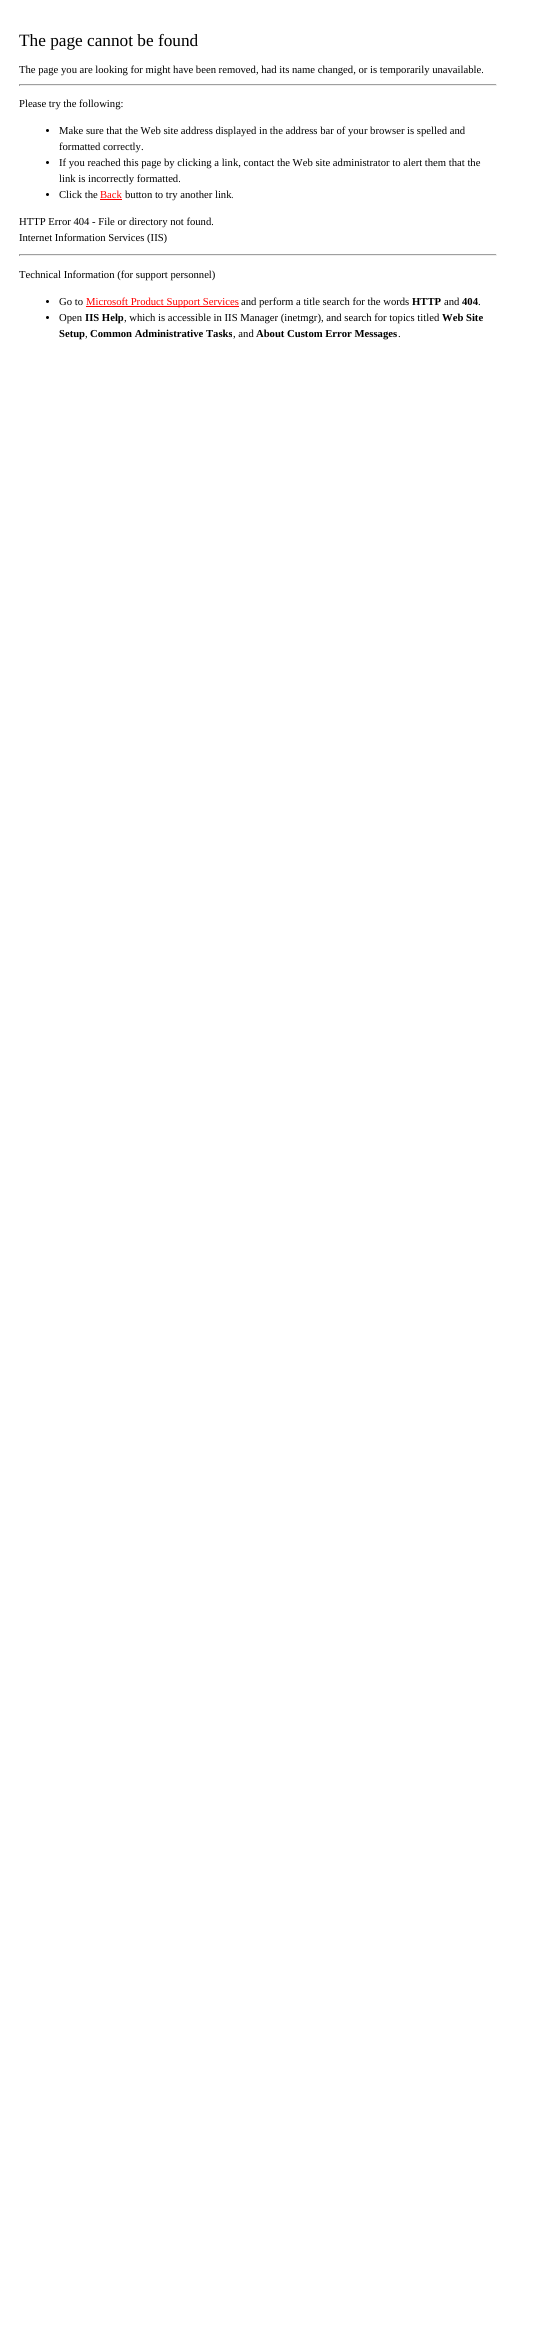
import math
import cairo


def draw(ctx):
	ctx.set_source_rgb(1, 1, 1)
	ctx.paint()
	ctx.select_font_face('Liberation Serif')
	ctx.set_font_size(17.25)
	ctx.set_source_rgb(0, 0, 0)
	ctx.move_to(19, 46)
	ctx.show_text('The page cannot be found')
	ctx.set_font_size(10.65)
	ctx.move_to(19, 73)
	ctx.show_text('The page you are looking for might have been removed, had its name changed, or is temporarily unavailable.')
	ctx.set_source_rgb(0.624, 0.624, 0.624)
	ctx.rectangle(19, 84, 478, 1)
	ctx.fill()
	ctx.set_source_rgb(0.933, 0.933, 0.933)
	ctx.rectangle(496, 84, 1, 2)
	ctx.rectangle(19, 85, 478, 1)
	ctx.fill()
	ctx.set_source_rgb(0.624, 0.624, 0.624)
	ctx.rectangle(19, 84, 1, 2)
	ctx.fill()
	ctx.set_source_rgb(0, 0, 0)
	ctx.move_to(19, 107)
	ctx.show_text('Please try the following:')
	ctx.new_path()
	ctx.arc(47.5, 130.5, 1.5, 0, 2 * math.pi)
	ctx.fill()
	ctx.move_to(59, 134)
	ctx.show_text('Make sure that the Web site address displayed in the address bar of your browser is spelled and')
	ctx.move_to(59, 150)
	ctx.show_text('formatted correctly.')
	ctx.new_path()
	ctx.arc(47.5, 162.5, 1.5, 0, 2 * math.pi)
	ctx.fill()
	ctx.move_to(59, 166)
	ctx.show_text('If you reached this page by clicking a link, contact the Web site administrator to alert them that the')
	ctx.move_to(59, 182)
	ctx.show_text('link is incorrectly formatted.')
	ctx.new_path()
	ctx.arc(47.5, 194.5, 1.5, 0, 2 * math.pi)
	ctx.fill()
	ctx.move_to(59, 198)
	ctx.show_text('Click the')
	ctx.set_source_rgb(1, 0, 0)
	ctx.move_to(100, 198)
	ctx.show_text('Back')
	ctx.rectangle(100, 199, 22, 1)
	ctx.fill()
	ctx.set_source_rgb(0, 0, 0)
	for x, y, s in [
		(125, 198, 'button to try another link.'),
		(19, 225, 'HTTP Error 404 - File or directory not found.'),
		(19, 241, 'Internet Information Services (IIS)'),
	]:
		ctx.move_to(x, y)
		ctx.show_text(s)
	ctx.set_source_rgb(0.624, 0.624, 0.624)
	ctx.rectangle(19, 254, 478, 1)
	ctx.fill()
	ctx.set_source_rgb(0.933, 0.933, 0.933)
	ctx.rectangle(496, 254, 1, 2)
	ctx.rectangle(19, 255, 478, 1)
	ctx.fill()
	ctx.set_source_rgb(0.624, 0.624, 0.624)
	ctx.rectangle(19, 254, 1, 2)
	ctx.fill()
	ctx.set_source_rgb(0, 0, 0)
	ctx.move_to(19, 278)
	ctx.show_text('Technical Information (for support personnel)')
	ctx.new_path()
	ctx.arc(47.5, 301.5, 1.5, 0, 2 * math.pi)
	ctx.fill()
	ctx.move_to(59, 305)
	ctx.show_text('Go to')
	ctx.set_source_rgb(1, 0, 0)
	ctx.rectangle(86, 306, 153, 1)
	ctx.fill()
	ctx.move_to(86, 305)
	ctx.show_text('Microsoft Product Support Services')
	ctx.set_source_rgb(0, 0, 0)
	ctx.move_to(241, 305)
	ctx.show_text('and perform a title search for the words')
	ctx.select_font_face('Liberation Serif', cairo.FONT_SLANT_NORMAL, cairo.FONT_WEIGHT_BOLD)
	ctx.move_to(412, 305)
	ctx.show_text('HTTP')
	ctx.select_font_face('Liberation Serif')
	ctx.move_to(444, 305)
	ctx.show_text('and')
	ctx.select_font_face('Liberation Serif', cairo.FONT_SLANT_NORMAL, cairo.FONT_WEIGHT_BOLD)
	ctx.move_to(462, 305)
	ctx.show_text('404')
	ctx.select_font_face('Liberation Serif')
	ctx.move_to(478, 305)
	ctx.show_text('.')
	ctx.new_path()
	ctx.arc(47.5, 317.5, 1.5, 0, 2 * math.pi)
	ctx.fill()
	ctx.move_to(59, 321)
	ctx.show_text('Open')
	ctx.select_font_face('Liberation Serif', cairo.FONT_SLANT_NORMAL, cairo.FONT_WEIGHT_BOLD)
	ctx.move_to(85, 321)
	ctx.show_text('IIS Help')
	ctx.select_font_face('Liberation Serif')
	ctx.move_to(124, 321)
	ctx.show_text(', which is accessible in IIS Manager (inetmgr), and search for topics titled')
	ctx.select_font_face('Liberation Serif', cairo.FONT_SLANT_NORMAL, cairo.FONT_WEIGHT_BOLD)
	ctx.move_to(442, 321)
	ctx.show_text('Web Site')
	ctx.move_to(59, 337)
	ctx.show_text('Setup')
	ctx.select_font_face('Liberation Serif')
	ctx.move_to(85, 337)
	ctx.show_text(',')
	ctx.select_font_face('Liberation Serif', cairo.FONT_SLANT_NORMAL, cairo.FONT_WEIGHT_BOLD)
	ctx.move_to(90, 337)
	ctx.show_text('Common Administrative Tasks')
	ctx.select_font_face('Liberation Serif')
	ctx.move_to(233, 337)
	ctx.show_text(', and')
	ctx.select_font_face('Liberation Serif', cairo.FONT_SLANT_NORMAL, cairo.FONT_WEIGHT_BOLD)
	ctx.move_to(256, 337)
	ctx.show_text('About Custom Error Messages')
	ctx.select_font_face('Liberation Serif')
	ctx.move_to(398, 337)
	ctx.show_text('.')


surface = cairo.ImageSurface(cairo.FORMAT_RGB24, 547, 2350)
ctx = cairo.Context(surface)
options = cairo.FontOptions()
options.set_hint_metrics(cairo.HINT_METRICS_OFF)
options.set_hint_style(cairo.HINT_STYLE_NONE)
ctx.set_font_options(options)
ctx.set_miter_limit(4)
draw(ctx)
surface.write_to_png('image.png')
